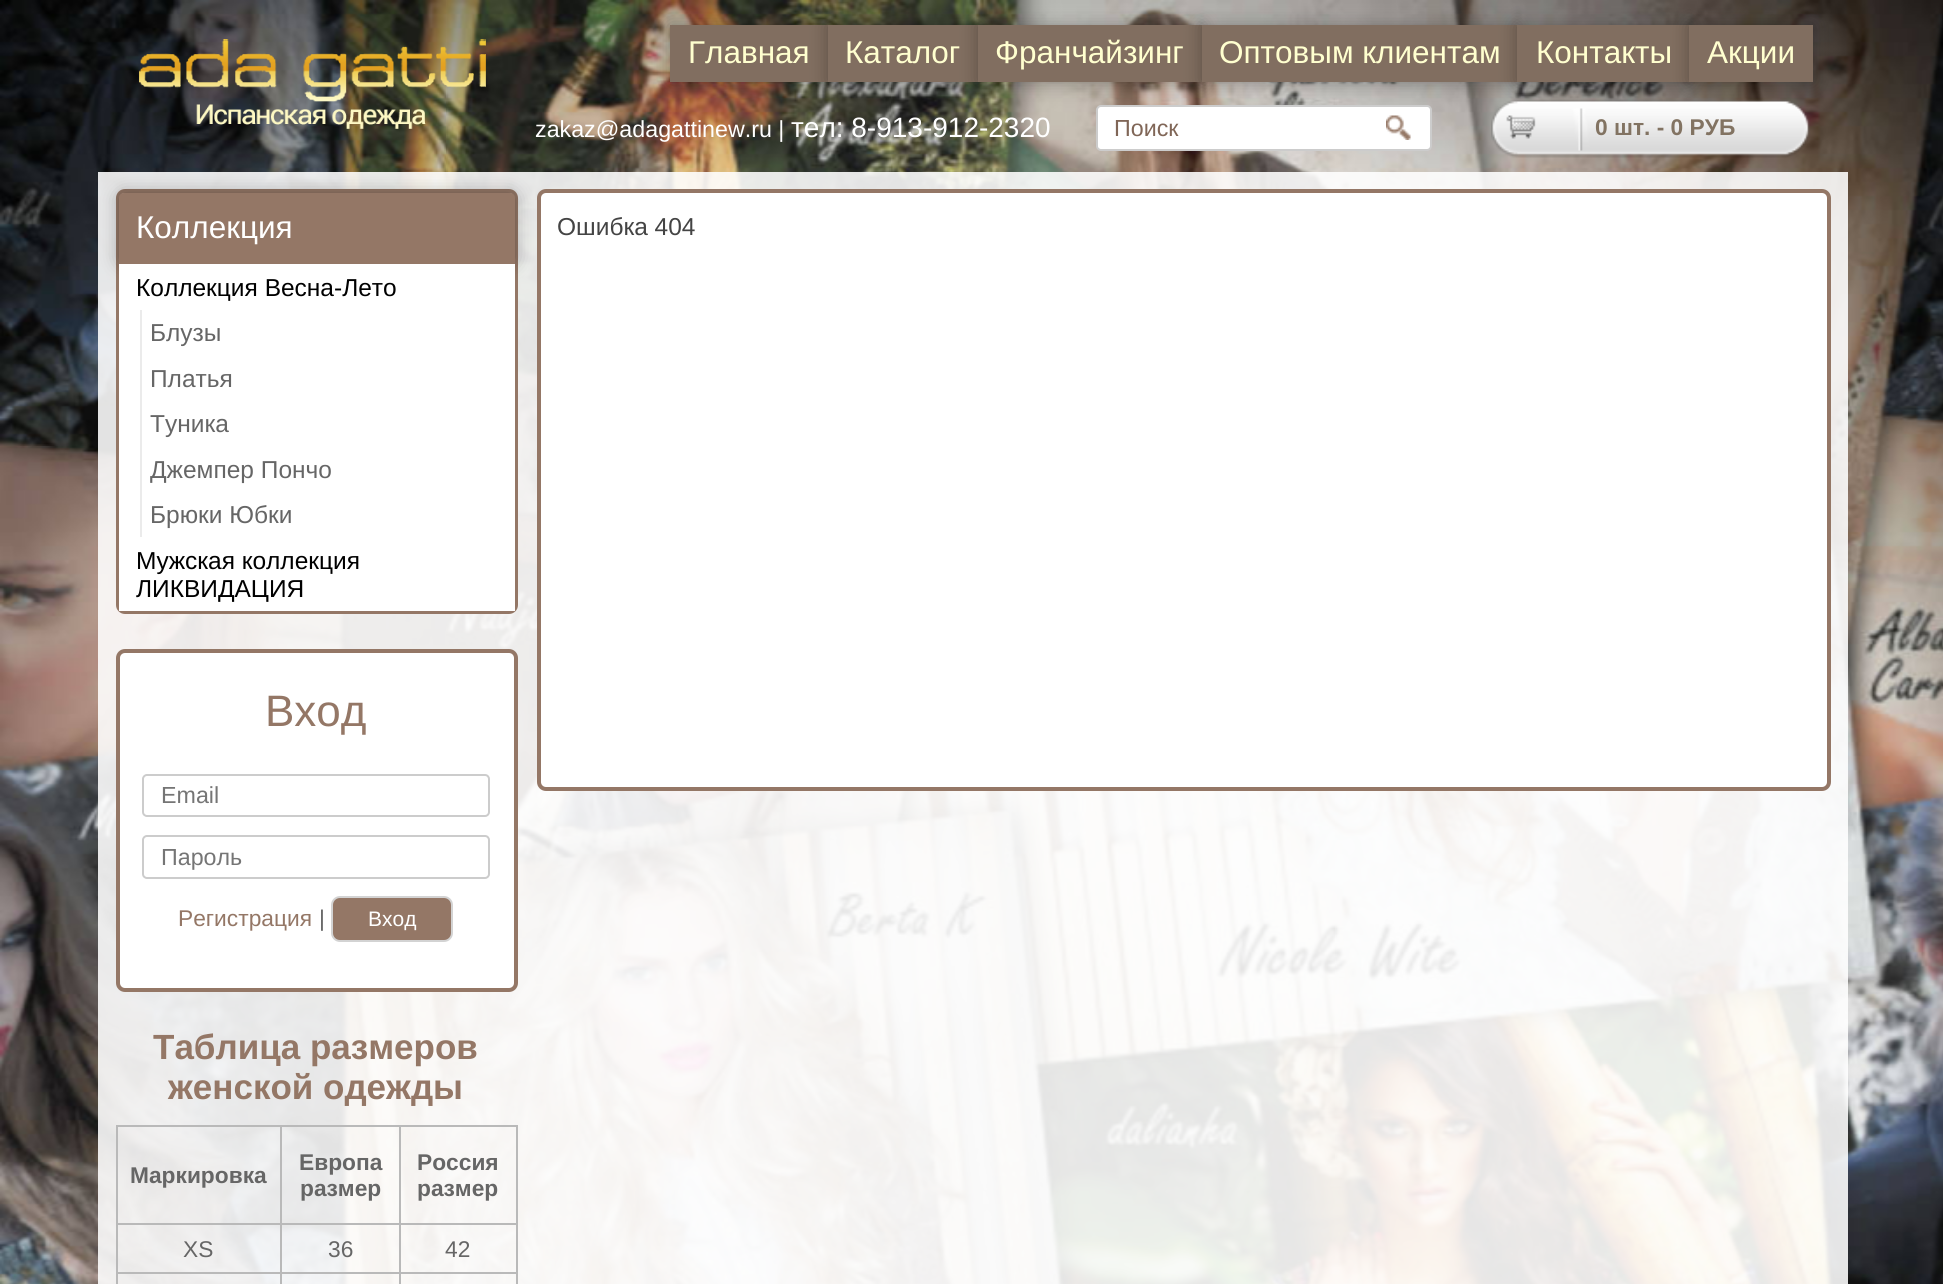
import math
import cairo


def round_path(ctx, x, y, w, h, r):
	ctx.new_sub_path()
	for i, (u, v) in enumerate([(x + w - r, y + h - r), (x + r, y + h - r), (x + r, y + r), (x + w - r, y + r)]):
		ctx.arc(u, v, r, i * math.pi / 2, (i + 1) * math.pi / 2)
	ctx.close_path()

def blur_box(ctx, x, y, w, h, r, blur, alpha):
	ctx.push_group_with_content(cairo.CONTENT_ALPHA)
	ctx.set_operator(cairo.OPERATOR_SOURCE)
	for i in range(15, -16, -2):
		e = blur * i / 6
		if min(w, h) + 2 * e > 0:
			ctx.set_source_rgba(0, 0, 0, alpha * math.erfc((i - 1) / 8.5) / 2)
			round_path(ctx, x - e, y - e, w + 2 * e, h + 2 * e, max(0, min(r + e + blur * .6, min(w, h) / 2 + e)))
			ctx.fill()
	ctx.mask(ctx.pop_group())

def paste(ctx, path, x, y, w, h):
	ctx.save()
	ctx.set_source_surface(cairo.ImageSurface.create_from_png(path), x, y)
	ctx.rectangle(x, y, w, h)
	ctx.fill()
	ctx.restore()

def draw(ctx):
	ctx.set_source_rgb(1, 1, 1)
	ctx.paint()
	paste(ctx, 'media/1.png', 0, 0, 1943, 1284)
	paste(ctx, 'media/2.png', 139, 39, 347, 90)
	ctx.set_source_rgb(0, 0, 0)
	blur_box(ctx, 670, 25, 158, 57, 0, 9, 0.3)
	ctx.set_source_rgb(0.506, 0.431, 0.376)
	ctx.rectangle(670, 25, 158, 57)
	ctx.fill()
	ctx.select_font_face('Liberation Sans')
	ctx.set_font_size(31.5)
	ctx.set_source_rgb(1, 1, 0.812)
	ctx.move_to(688, 63)
	ctx.show_text('Главная')
	ctx.set_source_rgb(0, 0, 0)
	blur_box(ctx, 828, 25, 150, 57, 0, 9, 0.3)
	ctx.set_source_rgb(0.506, 0.431, 0.376)
	ctx.rectangle(828, 25, 150, 57)
	ctx.fill()
	ctx.set_source_rgb(1, 1, 0.812)
	ctx.move_to(845, 63)
	ctx.show_text('Каталог')
	ctx.set_source_rgb(0, 0, 0)
	blur_box(ctx, 978, 25, 224, 57, 0, 9, 0.3)
	ctx.set_source_rgb(0.506, 0.431, 0.376)
	ctx.rectangle(978, 25, 224, 57)
	ctx.fill()
	ctx.set_source_rgb(1, 1, 0.812)
	ctx.move_to(995, 63)
	ctx.show_text('Франчайзинг')
	ctx.set_source_rgb(0, 0, 0)
	blur_box(ctx, 1202, 25, 315, 57, 0, 9, 0.3)
	ctx.set_source_rgb(0.506, 0.431, 0.376)
	ctx.rectangle(1202, 25, 315, 57)
	ctx.fill()
	ctx.set_source_rgb(1, 1, 0.812)
	ctx.move_to(1219, 63)
	ctx.show_text('Оптовым клиентам')
	ctx.set_source_rgb(0, 0, 0)
	blur_box(ctx, 1517, 25, 172, 57, 0, 9, 0.3)
	ctx.set_source_rgb(0.506, 0.431, 0.376)
	ctx.rectangle(1517, 25, 172, 57)
	ctx.fill()
	ctx.set_source_rgb(1, 1, 0.812)
	ctx.move_to(1536, 63)
	ctx.show_text('Контакты')
	ctx.set_source_rgb(0, 0, 0)
	blur_box(ctx, 1689, 25, 124, 57, 0, 9, 0.3)
	ctx.set_source_rgb(0.506, 0.431, 0.376)
	ctx.rectangle(1689, 25, 124, 57)
	ctx.fill()
	ctx.set_source_rgb(1, 1, 0.812)
	ctx.move_to(1707, 63)
	ctx.show_text('Акции')
	ctx.set_font_size(23.25)
	ctx.set_source_rgb(1, 1, 1)
	ctx.move_to(535, 137)
	ctx.show_text('zakaz@adagattinew.ru |')
	ctx.set_font_size(28)
	ctx.move_to(791, 137)
	ctx.show_text('тел: 8-913-912-2320')
	round_path(ctx, 1097, 106, 334, 44, 4)
	ctx.fill_preserve()
	ctx.set_source_rgb(0.8, 0.8, 0.8)
	ctx.stroke()
	ctx.set_font_size(23.25)
	ctx.set_source_rgb(0.502, 0.4, 0.341)
	ctx.move_to(1114, 136)
	ctx.show_text('Поиск')
	paste(ctx, 'media/3.png', 1386, 115, 25, 25)
	paste(ctx, 'media/4.png', 1491, 99, 319, 59)
	ctx.select_font_face('Liberation Sans', cairo.FONT_SLANT_NORMAL, cairo.FONT_WEIGHT_BOLD)
	ctx.set_font_size(22.75)
	ctx.set_source_rgb(0.51, 0.451, 0.384)
	ctx.move_to(1595, 135)
	ctx.show_text('0 шт. - 0 РУБ')
	ctx.set_source_rgba(1, 1, 1, 0.88)
	ctx.rectangle(98, 172, 1750, 1112)
	ctx.fill()
	round_path(ctx, 118, 191, 398, 421, 7)
	ctx.set_source_rgb(0.58, 0.467, 0.4)
	ctx.set_line_width(4)
	ctx.stroke()
	ctx.set_source_rgb(0, 0, 0)
	blur_box(ctx, 119, 193, 396, 71, 5, 9, 0.3)
	ctx.set_source_rgb(0.58, 0.467, 0.4)
	ctx.new_path()
	ctx.move_to(124, 193)
	ctx.line_to(510, 193)
	ctx.curve_to(513, 193, 515, 195, 515, 198)
	ctx.line_to(515, 264)
	ctx.line_to(119, 264)
	ctx.line_to(119, 198)
	ctx.curve_to(119, 195, 121, 193, 124, 193)
	ctx.close_path()
	ctx.fill()
	ctx.select_font_face('Liberation Sans')
	ctx.set_font_size(31.5)
	ctx.set_source_rgb(1, 1, 1)
	ctx.move_to(136, 238)
	ctx.show_text('Коллекция')
	ctx.rectangle(119, 264, 396, 347)
	ctx.fill()
	ctx.set_font_size(24.5)
	ctx.set_source_rgb(0, 0, 0)
	ctx.move_to(136, 296)
	ctx.show_text('Коллекция Весна-Лето')
	ctx.set_source_rgb(0.918, 0.918, 0.918)
	ctx.rectangle(140, 310, 2, 227)
	ctx.fill()
	ctx.set_source_rgb(0.4, 0.4, 0.4)
	for x, y, s in [
		(150, 341, 'Блузы'),
		(150, 387, 'Платья'),
		(150, 432, 'Туника'),
		(150, 478, 'Джемпер Пончо'),
		(150, 523, 'Брюки Юбки'),
	]:
		ctx.move_to(x, y)
		ctx.show_text(s)
	ctx.set_source_rgb(0, 0, 0)
	ctx.move_to(136, 569)
	ctx.show_text('Мужская коллекция')
	ctx.move_to(136, 597)
	ctx.show_text('ЛИКВИДАЦИЯ')
	ctx.set_source_rgb(1, 1, 1)
	round_path(ctx, 118, 651, 398, 339, 7)
	ctx.fill_preserve()
	ctx.set_source_rgb(0.58, 0.467, 0.4)
	ctx.stroke()
	ctx.set_font_size(44)
	ctx.move_to(265, 726)
	ctx.show_text('Вход')
	round_path(ctx, 143, 775, 346, 41, 4)
	ctx.set_source_rgb(0.8, 0.8, 0.8)
	ctx.set_line_width(2)
	ctx.stroke()
	ctx.set_font_size(23.25)
	ctx.set_source_rgb(0.459, 0.459, 0.459)
	ctx.move_to(161, 803)
	ctx.show_text('Email')
	round_path(ctx, 143, 836, 346, 42, 4)
	ctx.set_source_rgb(0.8, 0.8, 0.8)
	ctx.stroke()
	ctx.set_source_rgb(0.459, 0.459, 0.459)
	ctx.move_to(161, 865)
	ctx.show_text('Пароль')
	ctx.set_font_size(22.75)
	ctx.set_source_rgb(0.58, 0.467, 0.4)
	ctx.move_to(178, 926)
	ctx.show_text('Регистрация')
	ctx.set_source_rgb(0.4, 0.4, 0.4)
	ctx.move_to(319, 926)
	ctx.show_text('|')
	ctx.set_source_rgb(0.58, 0.467, 0.4)
	round_path(ctx, 332, 897, 120, 44, 8)
	ctx.fill_preserve()
	ctx.set_source_rgb(0.827, 0.827, 0.827)
	ctx.stroke()
	ctx.set_font_size(21)
	ctx.set_source_rgb(1, 1, 1)
	ctx.move_to(368, 926)
	ctx.show_text('Вход')
	ctx.select_font_face('Liberation Sans', cairo.FONT_SLANT_NORMAL, cairo.FONT_WEIGHT_BOLD)
	ctx.set_font_size(35)
	ctx.set_source_rgb(0.58, 0.467, 0.4)
	ctx.move_to(153, 1059)
	ctx.show_text('Таблица размеров')
	ctx.move_to(168, 1099)
	ctx.show_text('женской одежды')
	ctx.set_source_rgb(0.725, 0.725, 0.725)
	ctx.rectangle(399, 1125, 119, 2)
	ctx.rectangle(399, 1223, 119, 2)
	ctx.rectangle(399, 1272, 119, 2)
	ctx.rectangle(399, 1272, 2, 12)
	ctx.rectangle(280, 1272, 121, 2)
	ctx.rectangle(399, 1223, 2, 51)
	ctx.rectangle(280, 1223, 121, 2)
	ctx.rectangle(399, 1125, 2, 100)
	ctx.rectangle(280, 1125, 121, 2)
	ctx.rectangle(280, 1272, 2, 12)
	ctx.rectangle(116, 1272, 166, 2)
	ctx.rectangle(280, 1223, 2, 51)
	ctx.rectangle(116, 1223, 166, 2)
	ctx.rectangle(280, 1125, 2, 100)
	ctx.rectangle(116, 1125, 166, 2)
	ctx.rectangle(116, 1272, 2, 12)
	ctx.rectangle(116, 1223, 2, 51)
	ctx.rectangle(116, 1125, 2, 100)
	ctx.fill()
	ctx.set_font_size(22.75)
	ctx.set_source_rgb(0.4, 0.4, 0.4)
	for x, y, s in [
		(130, 1183, 'Маркировка'),
		(299, 1170, 'Европа'),
		(300, 1196, 'размер'),
	]:
		ctx.move_to(x, y)
		ctx.show_text(s)
	ctx.set_source_rgb(0.725, 0.725, 0.725)
	ctx.rectangle(516, 1272, 2, 12)
	ctx.rectangle(516, 1223, 2, 51)
	ctx.rectangle(516, 1125, 2, 100)
	ctx.fill()
	ctx.set_source_rgb(0.4, 0.4, 0.4)
	ctx.move_to(417, 1170)
	ctx.show_text('Россия')
	ctx.move_to(417, 1196)
	ctx.show_text('размер')
	ctx.select_font_face('Liberation Sans')
	for x, y, s in [
		(183, 1257, 'XS'),
		(328, 1257, '36'),
		(445, 1257, '42'),
	]:
		ctx.move_to(x, y)
		ctx.show_text(s)
	ctx.set_source_rgb(1, 1, 1)
	round_path(ctx, 539, 191, 1290, 598, 7)
	ctx.fill_preserve()
	ctx.set_source_rgb(0.58, 0.467, 0.4)
	ctx.set_line_width(4)
	ctx.stroke()
	ctx.set_font_size(24.5)
	ctx.set_source_rgb(0.267, 0.267, 0.267)
	ctx.move_to(557, 235)
	ctx.show_text('Ошибка 404')


surface = cairo.ImageSurface(cairo.FORMAT_RGB24, 1943, 1284)
ctx = cairo.Context(surface)
options = cairo.FontOptions()
options.set_hint_metrics(cairo.HINT_METRICS_OFF)
options.set_hint_style(cairo.HINT_STYLE_NONE)
ctx.set_font_options(options)
ctx.set_miter_limit(4)
draw(ctx)
surface.write_to_png('image.png')
